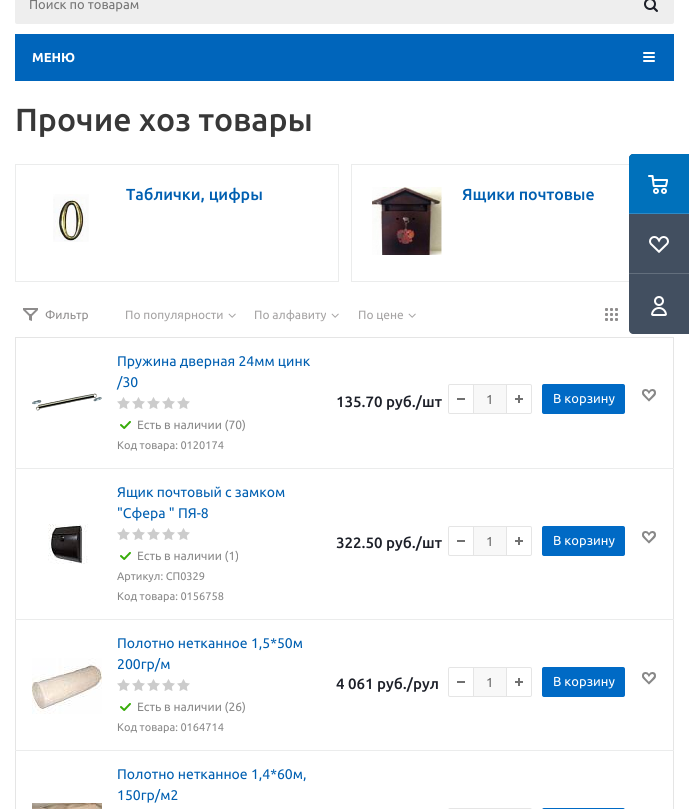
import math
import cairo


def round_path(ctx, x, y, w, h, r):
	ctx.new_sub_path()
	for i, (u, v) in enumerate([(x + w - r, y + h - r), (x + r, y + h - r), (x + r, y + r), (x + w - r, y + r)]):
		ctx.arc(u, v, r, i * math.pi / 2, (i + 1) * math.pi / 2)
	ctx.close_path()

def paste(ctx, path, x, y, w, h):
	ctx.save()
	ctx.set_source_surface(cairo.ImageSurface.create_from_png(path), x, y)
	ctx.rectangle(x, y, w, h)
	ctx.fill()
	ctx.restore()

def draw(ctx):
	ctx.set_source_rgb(1, 1, 1)
	ctx.paint()
	ctx.set_source_rgb(0.933, 0.933, 0.933)
	round_path(ctx, 15, -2, 659, 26, 2)
	ctx.fill()
	ctx.select_font_face('Ubuntu')
	ctx.set_font_size(13)
	ctx.set_source_rgb(0.459, 0.459, 0.459)
	ctx.move_to(29, 9)
	ctx.show_text('Поиск по товарам')
	paste(ctx, 'media/1.png', 644, 0, 14, 12)
	ctx.set_source_rgb(0, 0.396, 0.733)
	ctx.rectangle(15, 34, 659, 47)
	ctx.fill()
	ctx.select_font_face('Ubuntu', cairo.FONT_SLANT_NORMAL, cairo.FONT_WEIGHT_BOLD)
	ctx.set_source_rgb(1, 1, 1)
	ctx.move_to(32, 62)
	ctx.show_text('МЕНЮ')
	paste(ctx, 'media/2.png', 643, 52, 12, 10)
	ctx.rectangle(351.5, 164.5, 322, 117)
	ctx.set_source_rgb(0.918, 0.922, 0.925)
	ctx.set_line_width(1)
	ctx.stroke()
	ctx.set_source_rgb(0.259, 0.31, 0.376)
	ctx.new_path()
	ctx.move_to(633, 154)
	ctx.line_to(689, 154)
	ctx.line_to(689, 334)
	ctx.line_to(633, 334)
	ctx.curve_to(631, 334, 629, 332, 629, 330)
	ctx.line_to(629, 158)
	ctx.curve_to(629, 156, 631, 154, 633, 154)
	ctx.close_path()
	ctx.fill()
	ctx.set_source_rgb(0, 0.443, 0.733)
	ctx.new_path()
	ctx.move_to(633, 154)
	ctx.line_to(689, 154)
	ctx.line_to(689, 214)
	ctx.line_to(629, 214)
	ctx.line_to(629, 158)
	ctx.curve_to(629, 156, 631, 154, 633, 154)
	ctx.close_path()
	ctx.fill()
	paste(ctx, 'media/3.png', 648, 175, 20, 19)
	ctx.set_source_rgb(0.18, 0.541, 0.776)
	ctx.rectangle(629, 213, 60, 1)
	ctx.fill()
	paste(ctx, 'media/4.png', 649, 236, 20, 17)
	ctx.set_source_rgb(0.388, 0.435, 0.49)
	ctx.rectangle(629, 273, 60, 1)
	ctx.fill()
	paste(ctx, 'media/5.png', 651, 296, 16, 20)
	ctx.select_font_face('Ubuntu Medium')
	ctx.set_font_size(32)
	ctx.set_source_rgb(0.22, 0.22, 0.22)
	ctx.move_to(15, 131)
	ctx.show_text('Прочие хоз товары')
	ctx.rectangle(15.5, 164.5, 323, 117)
	ctx.set_source_rgb(0.918, 0.922, 0.925)
	ctx.stroke()
	paste(ctx, 'media/6.png', 53, 194, 36, 48)
	ctx.set_font_size(16)
	ctx.set_source_rgb(0, 0.373, 0.694)
	ctx.move_to(126, 200)
	ctx.show_text('Таблички, цифры')
	paste(ctx, 'media/7.png', 372, 187, 70, 68)
	ctx.move_to(462, 200)
	ctx.show_text('Ящики почтовые')
	paste(ctx, 'media/8.png', 23, 308, 15, 13)
	ctx.select_font_face('Ubuntu')
	ctx.set_font_size(12)
	ctx.set_source_rgb(0.557, 0.549, 0.549)
	ctx.move_to(45, 319)
	ctx.show_text('Фильтр')
	ctx.set_source_rgb(0.647, 0.639, 0.639)
	ctx.move_to(125, 319)
	ctx.show_text('По популярности')
	paste(ctx, 'media/9.png', 228, 313, 8, 5)
	ctx.move_to(254, 319)
	ctx.show_text('По алфавиту')
	paste(ctx, 'media/9.png', 331, 313, 8, 5)
	ctx.move_to(358, 319)
	ctx.show_text('По цене')
	paste(ctx, 'media/9.png', 408, 313, 8, 5)
	paste(ctx, 'media/10.png', 605, 308, 13, 13)
	ctx.set_source_rgb(0.898, 0.898, 0.898)
	ctx.rectangle(15, 337, 659, 1)
	ctx.rectangle(673, 337, 1, 472)
	ctx.rectangle(15, 337, 1, 472)
	ctx.fill()
	paste(ctx, 'media/11.png', 32, 393, 70, 18)
	ctx.set_font_size(14)
	ctx.set_source_rgb(0, 0.373, 0.694)
	ctx.move_to(117, 366)
	ctx.show_text('Пружина дверная 24мм цинк')
	ctx.move_to(117, 387)
	ctx.show_text('/30')
	paste(ctx, 'media/12.png', 117, 397, 13, 12)
	paste(ctx, 'media/12.png', 132, 397, 13, 12)
	paste(ctx, 'media/12.png', 147, 397, 13, 12)
	paste(ctx, 'media/12.png', 162, 397, 13, 12)
	paste(ctx, 'media/12.png', 177, 397, 13, 12)
	paste(ctx, 'media/13.png', 120, 421, 11, 8)
	ctx.set_font_size(12)
	ctx.set_source_rgb(0.533, 0.533, 0.533)
	ctx.move_to(137, 429)
	ctx.show_text('Есть в наличии (70)')
	ctx.set_font_size(11)
	ctx.move_to(117, 449)
	ctx.show_text('Код товара: 0120174')
	ctx.select_font_face('Ubuntu Medium')
	ctx.set_font_size(15)
	ctx.set_source_rgb(0.114, 0.125, 0.161)
	ctx.move_to(336, 407)
	ctx.show_text('135.70 руб./шт')
	round_path(ctx, 448.5, 384.5, 83, 29, 1.5)
	ctx.set_source_rgb(0.898, 0.898, 0.898)
	ctx.stroke()
	ctx.set_source_rgb(0.439, 0.439, 0.439)
	ctx.rectangle(457, 398, 8, 2)
	ctx.fill()
	ctx.set_source_rgb(0.969, 0.969, 0.969)
	ctx.rectangle(474, 385, 32, 28)
	ctx.fill()
	ctx.set_source_rgb(0.898, 0.898, 0.898)
	ctx.rectangle(506, 385, 1, 28)
	ctx.rectangle(473, 385, 1, 28)
	ctx.fill()
	ctx.select_font_face('Ubuntu')
	ctx.set_font_size(13)
	ctx.set_source_rgb(0.4, 0.4, 0.4)
	ctx.move_to(486, 404)
	ctx.show_text('1')
	paste(ctx, 'media/14.png', 515, 395, 8, 8)
	ctx.set_source_rgb(0, 0.416, 0.773)
	round_path(ctx, 542, 384, 83, 30, 2)
	ctx.fill()
	ctx.set_source_rgb(1, 1, 1)
	ctx.move_to(553, 403)
	ctx.show_text('В корзину')
	paste(ctx, 'media/15.png', 642, 389, 14, 13)
	ctx.set_source_rgb(0.918, 0.922, 0.925)
	ctx.rectangle(15, 468, 659, 1)
	ctx.fill()
	paste(ctx, 'media/15.png', 642, 531, 14, 13)
	paste(ctx, 'media/16.png', 48, 524, 40, 40)
	ctx.set_font_size(14)
	ctx.set_source_rgb(0, 0.373, 0.694)
	ctx.move_to(117, 497)
	ctx.show_text('Ящик почтовый с замком')
	ctx.move_to(117, 518)
	ctx.show_text('"Сфера " ПЯ-8')
	paste(ctx, 'media/12.png', 117, 528, 13, 12)
	paste(ctx, 'media/12.png', 132, 528, 13, 12)
	paste(ctx, 'media/12.png', 147, 528, 13, 12)
	paste(ctx, 'media/12.png', 162, 528, 13, 12)
	paste(ctx, 'media/12.png', 177, 528, 13, 12)
	paste(ctx, 'media/13.png', 120, 552, 11, 8)
	ctx.set_font_size(12)
	ctx.set_source_rgb(0.533, 0.533, 0.533)
	ctx.move_to(137, 560)
	ctx.show_text('Есть в наличии (1)')
	ctx.set_font_size(11)
	ctx.move_to(117, 580)
	ctx.show_text('Артикул: СП0329')
	ctx.move_to(117, 600)
	ctx.show_text('Код товара: 0156758')
	ctx.select_font_face('Ubuntu Medium')
	ctx.set_font_size(15)
	ctx.set_source_rgb(0.114, 0.125, 0.161)
	ctx.move_to(336, 548)
	ctx.show_text('322.50 руб./шт')
	round_path(ctx, 448.5, 526.5, 83, 29, 1.5)
	ctx.set_source_rgb(0.898, 0.898, 0.898)
	ctx.stroke()
	ctx.set_source_rgb(0.439, 0.439, 0.439)
	ctx.rectangle(457, 540, 8, 2)
	ctx.fill()
	ctx.set_source_rgb(0.969, 0.969, 0.969)
	ctx.rectangle(474, 527, 32, 28)
	ctx.fill()
	ctx.set_source_rgb(0.898, 0.898, 0.898)
	ctx.rectangle(506, 527, 1, 28)
	ctx.rectangle(473, 527, 1, 28)
	ctx.fill()
	ctx.select_font_face('Ubuntu')
	ctx.set_font_size(13)
	ctx.set_source_rgb(0.4, 0.4, 0.4)
	ctx.move_to(486, 546)
	ctx.show_text('1')
	paste(ctx, 'media/14.png', 515, 537, 8, 8)
	ctx.set_source_rgb(0, 0.416, 0.773)
	round_path(ctx, 542, 526, 83, 30, 2)
	ctx.fill()
	ctx.set_source_rgb(1, 1, 1)
	ctx.move_to(553, 545)
	ctx.show_text('В корзину')
	ctx.set_source_rgb(0.918, 0.922, 0.925)
	ctx.rectangle(15, 619, 659, 1)
	ctx.fill()
	paste(ctx, 'media/15.png', 642, 672, 14, 13)
	paste(ctx, 'media/17.png', 32, 658, 70, 56)
	ctx.set_font_size(14)
	ctx.set_source_rgb(0, 0.373, 0.694)
	ctx.move_to(117, 648)
	ctx.show_text('Полотно нетканное 1,5*50м')
	ctx.move_to(117, 669)
	ctx.show_text('200гр/м')
	paste(ctx, 'media/12.png', 117, 679, 13, 12)
	paste(ctx, 'media/12.png', 132, 679, 13, 12)
	paste(ctx, 'media/12.png', 147, 679, 13, 12)
	paste(ctx, 'media/12.png', 162, 679, 13, 12)
	paste(ctx, 'media/12.png', 177, 679, 13, 12)
	paste(ctx, 'media/13.png', 120, 703, 11, 8)
	ctx.set_font_size(12)
	ctx.set_source_rgb(0.533, 0.533, 0.533)
	ctx.move_to(137, 711)
	ctx.show_text('Есть в наличии (26)')
	ctx.set_font_size(11)
	ctx.move_to(117, 731)
	ctx.show_text('Код товара: 0164714')
	ctx.select_font_face('Ubuntu Medium')
	ctx.set_font_size(15)
	ctx.set_source_rgb(0.114, 0.125, 0.161)
	ctx.move_to(336, 689)
	ctx.show_text('4 061 руб./рул')
	round_path(ctx, 448.5, 667.5, 83, 29, 1.5)
	ctx.set_source_rgb(0.898, 0.898, 0.898)
	ctx.stroke()
	ctx.set_source_rgb(0.439, 0.439, 0.439)
	ctx.rectangle(457, 681, 8, 2)
	ctx.fill()
	ctx.set_source_rgb(0.969, 0.969, 0.969)
	ctx.rectangle(474, 668, 32, 28)
	ctx.fill()
	ctx.set_source_rgb(0.898, 0.898, 0.898)
	ctx.rectangle(506, 668, 1, 28)
	ctx.rectangle(473, 668, 1, 28)
	ctx.fill()
	ctx.select_font_face('Ubuntu')
	ctx.set_font_size(13)
	ctx.set_source_rgb(0.4, 0.4, 0.4)
	ctx.move_to(486, 687)
	ctx.show_text('1')
	paste(ctx, 'media/14.png', 515, 678, 8, 8)
	ctx.set_source_rgb(0, 0.416, 0.773)
	round_path(ctx, 542, 667, 83, 30, 2)
	ctx.fill()
	ctx.set_source_rgb(1, 1, 1)
	ctx.move_to(553, 686)
	ctx.show_text('В корзину')
	ctx.set_source_rgb(0.918, 0.922, 0.925)
	ctx.rectangle(15, 750, 659, 1)
	ctx.fill()
	ctx.set_font_size(14)
	ctx.set_source_rgb(0, 0.373, 0.694)
	ctx.move_to(117, 779)
	ctx.show_text('Полотно нетканное 1,4*60м,')
	ctx.move_to(117, 800)
	ctx.show_text('150гр/м2')
	paste(ctx, 'media/18.png', 32, 803, 70, 6)
	round_path(ctx, 448.5, 808.5, 83, 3, 1.5)
	ctx.set_source_rgb(0.898, 0.898, 0.898)
	ctx.stroke()
	ctx.set_source_rgb(0, 0.416, 0.773)
	round_path(ctx, 542, 808, 83, 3, 2)
	ctx.fill()


surface = cairo.ImageSurface(cairo.FORMAT_RGB24, 689, 809)
ctx = cairo.Context(surface)
options = cairo.FontOptions()
options.set_hint_metrics(cairo.HINT_METRICS_OFF)
options.set_hint_style(cairo.HINT_STYLE_NONE)
ctx.set_font_options(options)
ctx.set_miter_limit(4)
draw(ctx)
surface.write_to_png('image.png')
